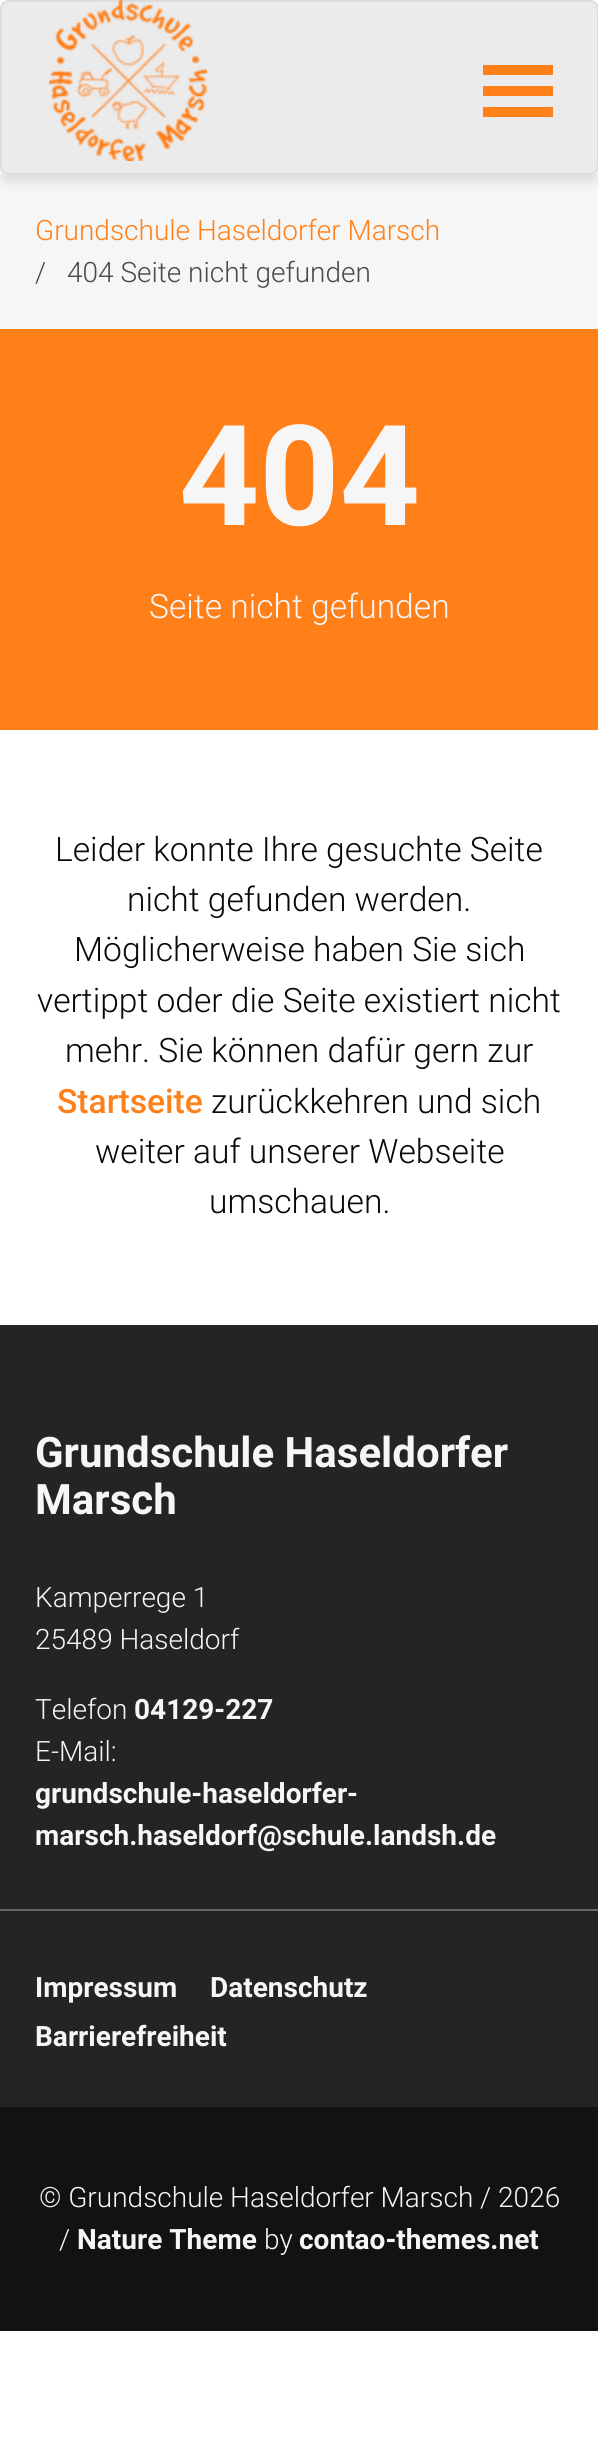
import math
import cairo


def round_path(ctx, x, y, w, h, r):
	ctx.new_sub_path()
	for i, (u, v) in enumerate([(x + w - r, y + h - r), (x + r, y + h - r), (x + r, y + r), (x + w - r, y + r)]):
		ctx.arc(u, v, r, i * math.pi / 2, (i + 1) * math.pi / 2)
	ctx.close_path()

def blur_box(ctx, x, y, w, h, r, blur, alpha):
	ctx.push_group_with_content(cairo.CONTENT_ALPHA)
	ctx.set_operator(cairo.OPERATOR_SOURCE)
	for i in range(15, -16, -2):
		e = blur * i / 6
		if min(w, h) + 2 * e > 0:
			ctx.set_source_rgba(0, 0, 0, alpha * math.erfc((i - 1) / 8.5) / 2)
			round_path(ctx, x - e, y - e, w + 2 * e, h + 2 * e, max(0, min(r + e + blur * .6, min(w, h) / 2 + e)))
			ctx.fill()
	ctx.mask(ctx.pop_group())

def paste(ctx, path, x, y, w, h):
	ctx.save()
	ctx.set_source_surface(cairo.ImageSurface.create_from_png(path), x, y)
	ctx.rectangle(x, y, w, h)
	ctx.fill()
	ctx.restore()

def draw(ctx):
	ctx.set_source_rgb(1, 1, 1)
	ctx.paint()
	ctx.set_source_rgb(0.961, 0.961, 0.961)
	ctx.rectangle(0, 175, 598, 154)
	ctx.fill()
	ctx.set_source_rgb(0, 0, 0)
	blur_box(ctx, 0, 7, 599, 175, 9, 5, 0.1)
	ctx.set_source_rgb(0.918, 0.918, 0.918)
	round_path(ctx, 1, 1, 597, 173, 8)
	ctx.fill_preserve()
	ctx.set_source_rgb(0.867, 0.867, 0.867)
	ctx.stroke()
	paste(ctx, 'media/1.png', 49, 0, 158, 161)
	ctx.set_source_rgb(1, 0.498, 0.098)
	ctx.rectangle(483, 65, 70, 10)
	ctx.rectangle(483, 86, 70, 10)
	ctx.rectangle(483, 107, 70, 10)
	ctx.fill()
	ctx.select_font_face('Roboto Light')
	ctx.set_font_size(28)
	ctx.move_to(35, 240)
	ctx.show_text('Grundschule Haseldorfer Marsch')
	ctx.set_source_rgb(0.29, 0.29, 0.29)
	ctx.move_to(35, 282)
	ctx.show_text('/')
	ctx.move_to(67, 282)
	ctx.show_text('404 Seite nicht gefunden')
	ctx.set_source_rgb(1, 0.498, 0.098)
	ctx.rectangle(0, 329, 598, 401)
	ctx.fill()
	ctx.select_font_face('Roboto', cairo.FONT_SLANT_NORMAL, cairo.FONT_WEIGHT_BOLD)
	ctx.set_font_size(140)
	ctx.set_source_rgb(0.961, 0.961, 0.961)
	ctx.move_to(179, 525)
	ctx.show_text('404')
	ctx.select_font_face('Roboto Light')
	ctx.set_font_size(33.6)
	ctx.move_to(149, 618)
	ctx.show_text('Seite nicht gefunden')
	ctx.set_source_rgb(0.039, 0.039, 0.039)
	for x, y, s in [
		(55, 861, 'Leider konnte Ihre gesuchte Seite'),
		(127, 911, 'nicht gefunden werden.'),
		(74, 961, 'Möglicherweise haben Sie sich'),
		(37, 1012, 'vertippt oder die Seite existiert nicht'),
		(65, 1062, 'mehr. Sie können dafür gern zur'),
	]:
		ctx.move_to(x, y)
		ctx.show_text(s)
	ctx.select_font_face('Roboto Medium')
	ctx.set_source_rgb(1, 0.498, 0.098)
	ctx.move_to(57, 1113)
	ctx.show_text('Startseite')
	ctx.select_font_face('Roboto Light')
	ctx.set_source_rgb(0.039, 0.039, 0.039)
	for x, y, s in [
		(211, 1113, 'zurückkehren und sich'),
		(95, 1163, 'weiter auf unserer Webseite'),
		(209, 1213, 'umschauen.'),
	]:
		ctx.move_to(x, y)
		ctx.show_text(s)
	ctx.set_source_rgb(0.141, 0.141, 0.141)
	ctx.rectangle(0, 1325, 598, 782)
	ctx.fill()
	ctx.set_source_rgb(0.4, 0.4, 0.4)
	ctx.rectangle(0, 1909, 598, 2)
	ctx.fill()
	ctx.select_font_face('Roboto', cairo.FONT_SLANT_NORMAL, cairo.FONT_WEIGHT_BOLD)
	ctx.set_font_size(42)
	ctx.set_source_rgb(0.961, 0.961, 0.961)
	ctx.move_to(35, 1467)
	ctx.show_text('Grundschule Haseldorfer')
	ctx.move_to(35, 1514)
	ctx.show_text('Marsch')
	ctx.select_font_face('Roboto Light')
	ctx.set_font_size(28)
	for x, y, s in [
		(35, 1607, 'Kamperrege 1'),
		(35, 1649, '25489 Haseldorf'),
		(35, 1719, 'Telefon'),
	]:
		ctx.move_to(x, y)
		ctx.show_text(s)
	ctx.select_font_face('Roboto', cairo.FONT_SLANT_NORMAL, cairo.FONT_WEIGHT_BOLD)
	ctx.move_to(134, 1719)
	ctx.show_text('04129-227')
	ctx.select_font_face('Roboto Light')
	ctx.move_to(35, 1761)
	ctx.show_text('E-Mail:')
	ctx.select_font_face('Roboto', cairo.FONT_SLANT_NORMAL, cairo.FONT_WEIGHT_BOLD)
	for x, y, s in [
		(35, 1803, 'grundschule-haseldorfer-'),
		(35, 1845, 'marsch.haseldorf@schule.landsh.de'),
		(35, 1997, 'Impressum'),
		(210, 1997, 'Datenschutz'),
		(35, 2046, 'Barrierefreiheit'),
	]:
		ctx.move_to(x, y)
		ctx.show_text(s)
	ctx.set_source_rgb(0.071, 0.071, 0.071)
	ctx.rectangle(0, 2107, 598, 224)
	ctx.fill()
	ctx.select_font_face('Roboto Light')
	ctx.set_source_rgb(0.961, 0.961, 0.961)
	ctx.move_to(39, 2207)
	ctx.show_text('© Grundschule Haseldorfer Marsch / 2026')
	ctx.move_to(59, 2249)
	ctx.show_text('/')
	ctx.select_font_face('Roboto', cairo.FONT_SLANT_NORMAL, cairo.FONT_WEIGHT_BOLD)
	ctx.move_to(77, 2249)
	ctx.show_text('Nature Theme')
	ctx.select_font_face('Roboto Light')
	ctx.move_to(264, 2249)
	ctx.show_text('by')
	ctx.select_font_face('Roboto', cairo.FONT_SLANT_NORMAL, cairo.FONT_WEIGHT_BOLD)
	ctx.move_to(299, 2249)
	ctx.show_text('contao-themes.net')


surface = cairo.ImageSurface(cairo.FORMAT_RGB24, 598, 2462)
ctx = cairo.Context(surface)
options = cairo.FontOptions()
options.set_hint_metrics(cairo.HINT_METRICS_OFF)
options.set_hint_style(cairo.HINT_STYLE_NONE)
ctx.set_font_options(options)
ctx.set_miter_limit(4)
draw(ctx)
surface.write_to_png('image.png')
